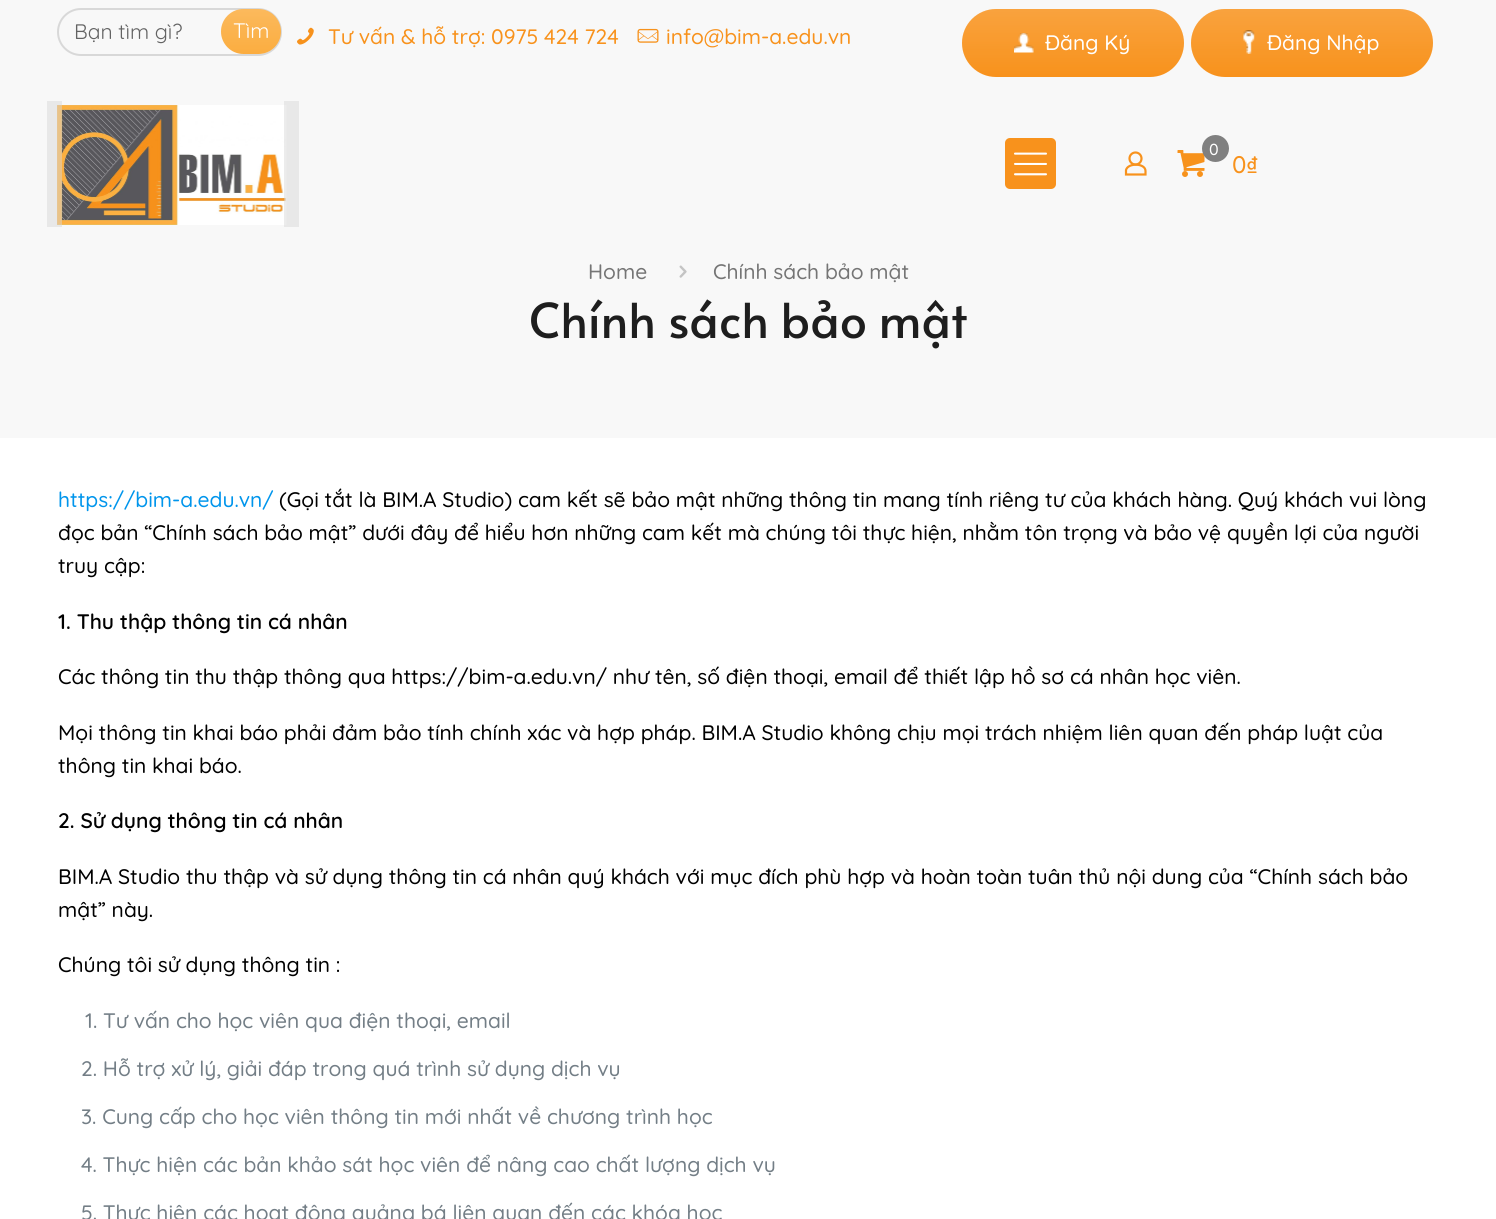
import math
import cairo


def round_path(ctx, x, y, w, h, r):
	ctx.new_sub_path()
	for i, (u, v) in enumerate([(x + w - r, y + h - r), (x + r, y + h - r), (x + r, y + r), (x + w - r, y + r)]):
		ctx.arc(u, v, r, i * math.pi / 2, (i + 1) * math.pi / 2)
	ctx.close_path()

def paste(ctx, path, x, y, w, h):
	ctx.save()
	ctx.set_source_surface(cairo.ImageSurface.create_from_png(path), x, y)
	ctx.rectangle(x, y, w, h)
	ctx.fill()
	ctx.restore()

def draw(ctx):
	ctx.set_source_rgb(1, 1, 1)
	ctx.paint()
	ctx.set_source_rgb(0.969, 0.969, 0.969)
	ctx.rectangle(0, 0, 1496, 438)
	ctx.fill()
	round_path(ctx, 58, 9, 223, 46, 23)
	ctx.set_source_rgb(0.847, 0.847, 0.847)
	ctx.stroke()
	ctx.select_font_face('Quicksand')
	ctx.set_font_size(21)
	ctx.set_source_rgb(0.388, 0.388, 0.388)
	ctx.move_to(74, 39)
	ctx.show_text('Bạn tìm gì?')
	ctx.set_source_rgb(0.984, 0.678, 0.251)
	round_path(ctx, 221, 9, 60, 45, 22.5)
	ctx.fill()
	gradient = cairo.LinearGradient(251, 9, 251, 54)
	gradient.add_color_stop_rgba(0, 1, 1, 1, 0.15)
	gradient.add_color_stop_rgba(1, 1, 1, 1, 0)
	ctx.set_source(gradient)
	round_path(ctx, 221, 9, 60, 45, 22.5)
	ctx.fill()
	ctx.set_source_rgb(1, 1, 1)
	ctx.move_to(233, 38)
	ctx.show_text('Tìm')
	paste(ctx, 'media/1.png', 297, 27, 17, 18)
	ctx.select_font_face('Quicksand Medium')
	ctx.set_source_rgb(0.969, 0.573, 0.11)
	ctx.move_to(328, 44)
	ctx.show_text('Tư vấn & hỗ trợ: 0975 424 724')
	paste(ctx, 'media/2.png', 637, 28, 22, 15)
	ctx.move_to(666, 44)
	ctx.show_text('info@bim-a.edu.vn')
	round_path(ctx, 962, 9, 222, 68, 34)
	ctx.fill()
	gradient = cairo.LinearGradient(1073, 9, 1073, 77)
	gradient.add_color_stop_rgba(0, 1, 1, 1, 0.15)
	gradient.add_color_stop_rgba(1, 1, 1, 1, 0)
	ctx.set_source(gradient)
	round_path(ctx, 962, 9, 222, 68, 34)
	ctx.fill()
	paste(ctx, 'media/3.png', 1014, 33, 20, 20)
	ctx.set_source_rgb(1, 1, 1)
	ctx.move_to(1045, 50)
	ctx.show_text('Đăng Ký')
	ctx.set_source_rgb(0.969, 0.573, 0.11)
	round_path(ctx, 1191, 9, 242, 68, 34)
	ctx.fill()
	gradient = cairo.LinearGradient(1312, 9, 1312, 77)
	gradient.add_color_stop_rgba(0, 1, 1, 1, 0.15)
	gradient.add_color_stop_rgba(1, 1, 1, 1, 0)
	ctx.set_source(gradient)
	round_path(ctx, 1191, 9, 242, 68, 34)
	ctx.fill()
	paste(ctx, 'media/4.png', 1243, 30, 12, 24)
	ctx.set_source_rgb(1, 1, 1)
	ctx.move_to(1267, 50)
	ctx.show_text('Đăng Nhập')
	paste(ctx, 'media/5.png', 57, 105, 230, 120)
	ctx.set_source_rgba(0.839, 0.839, 0.839, 0.48)
	ctx.rectangle(47, 101, 15, 126)
	ctx.fill()
	ctx.rectangle(284, 101, 15, 126)
	ctx.fill()
	ctx.set_source_rgb(0.969, 0.573, 0.11)
	round_path(ctx, 1005, 138, 51, 51, 5)
	ctx.fill()
	paste(ctx, 'media/6.png', 1014, 152, 33, 24)
	ctx.arc(1135.5, 158.5, 6, 0, 2 * math.pi)
	ctx.set_line_width(2.2)
	ctx.stroke()
	ctx.new_path()
	ctx.move_to(1145.5, 171)
	ctx.line_to(1145.5, 174.5)
	ctx.line_to(1126, 174.5)
	ctx.line_to(1126, 170)
	ctx.curve_to(1128, 162.5, 1145.5, 163, 1145.5, 171)
	ctx.close_path()
	ctx.stroke()
	paste(ctx, 'media/7.png', 1177, 150, 28, 27)
	ctx.set_source_rgb(0.502, 0.502, 0.502)
	ctx.arc(1215.5, 148.5, 13.5, 0, 2 * math.pi)
	ctx.fill()
	ctx.set_font_size(16)
	ctx.set_source_rgb(1, 1, 1)
	ctx.move_to(1209, 155)
	ctx.show_text('0')
	ctx.set_font_size(24)
	ctx.set_source_rgb(0.969, 0.573, 0.11)
	ctx.move_to(1232, 173)
	ctx.show_text('0₫')
	ctx.set_font_size(21)
	ctx.set_source_rgb(0.459, 0.459, 0.459)
	ctx.move_to(588, 279)
	ctx.show_text('Home')
	paste(ctx, 'media/8.png', 679, 265, 8, 13)
	ctx.move_to(713, 279)
	ctx.show_text('Chính sách bảo mật')
	ctx.select_font_face('Alata')
	ctx.set_font_size(48)
	ctx.set_source_rgb(0.118, 0.118, 0.118)
	ctx.move_to(529, 338)
	ctx.show_text('Chính sách bảo mật')
	ctx.select_font_face('Quicksand Medium')
	ctx.set_font_size(21)
	ctx.set_source_rgb(0, 0.584, 0.922)
	ctx.move_to(58, 507)
	ctx.show_text('https://bim-a.edu.vn/')
	ctx.set_source_rgb(0, 0, 0)
	for x, y, s in [
		(279, 507, '(Gọi tắt là BIM.A Studio) cam kết sẽ bảo mật những thông tin mang tính riêng tư của khách hàng. Quý khách vui lòng'),
		(58, 540, 'đọc bản “Chính sách bảo mật” dưới đây để hiểu hơn những cam kết mà chúng tôi thực hiện, nhằm tôn trọng và bảo vệ quyền lợi của người'),
		(58, 573, 'truy cập:'),
	]:
		ctx.move_to(x, y)
		ctx.show_text(s)
	ctx.select_font_face('Quicksand SemiBold')
	ctx.move_to(58, 629)
	ctx.show_text('1. Thu thập thông tin cá nhân')
	ctx.select_font_face('Quicksand Medium')
	for x, y, s in [
		(58, 684, 'Các thông tin thu thập thông qua https://bim-a.edu.vn/ như tên, số điện thoại, email để thiết lập hồ sơ cá nhân học viên.'),
		(58, 740, 'Mọi thông tin khai báo phải đảm bảo tính chính xác và hợp pháp. BIM.A Studio không chịu mọi trách nhiệm liên quan đến pháp luật của'),
		(58, 773, 'thông tin khai báo.'),
	]:
		ctx.move_to(x, y)
		ctx.show_text(s)
	ctx.select_font_face('Quicksand SemiBold')
	ctx.move_to(58, 828)
	ctx.show_text('2. Sử dụng thông tin cá nhân')
	ctx.select_font_face('Quicksand Medium')
	for x, y, s in [
		(58, 884, 'BIM.A Studio thu thập và sử dụng thông tin cá nhân quý khách với mục đích phù hợp và hoàn toàn tuân thủ nội dung của “Chính sách bảo'),
		(58, 917, 'mật” này.'),
		(58, 972, 'Chúng tôi sử dụng thông tin :'),
	]:
		ctx.move_to(x, y)
		ctx.show_text(s)
	ctx.set_source_rgb(0.451, 0.494, 0.525)
	for x, y, s in [
		(85, 1028, '1. Tư vấn cho học viên qua điện thoại, email'),
		(81, 1076, '2. Hỗ trợ xử lý, giải đáp trong quá trình sử dụng dịch vụ'),
		(81, 1124, '3. Cung cấp cho học viên thông tin mới nhất về chương trình học'),
		(81, 1172, '4. Thực hiện các bản khảo sát học viên để nâng cao chất lượng dịch vụ'),
		(81, 1220, '5. Thực hiện các hoạt động quảng bá liên quan đến các khóa học'),
	]:
		ctx.move_to(x, y)
		ctx.show_text(s)


surface = cairo.ImageSurface(cairo.FORMAT_RGB24, 1496, 1219)
ctx = cairo.Context(surface)
options = cairo.FontOptions()
options.set_hint_metrics(cairo.HINT_METRICS_OFF)
options.set_hint_style(cairo.HINT_STYLE_NONE)
ctx.set_font_options(options)
ctx.set_miter_limit(4)
draw(ctx)
surface.write_to_png('image.png')
